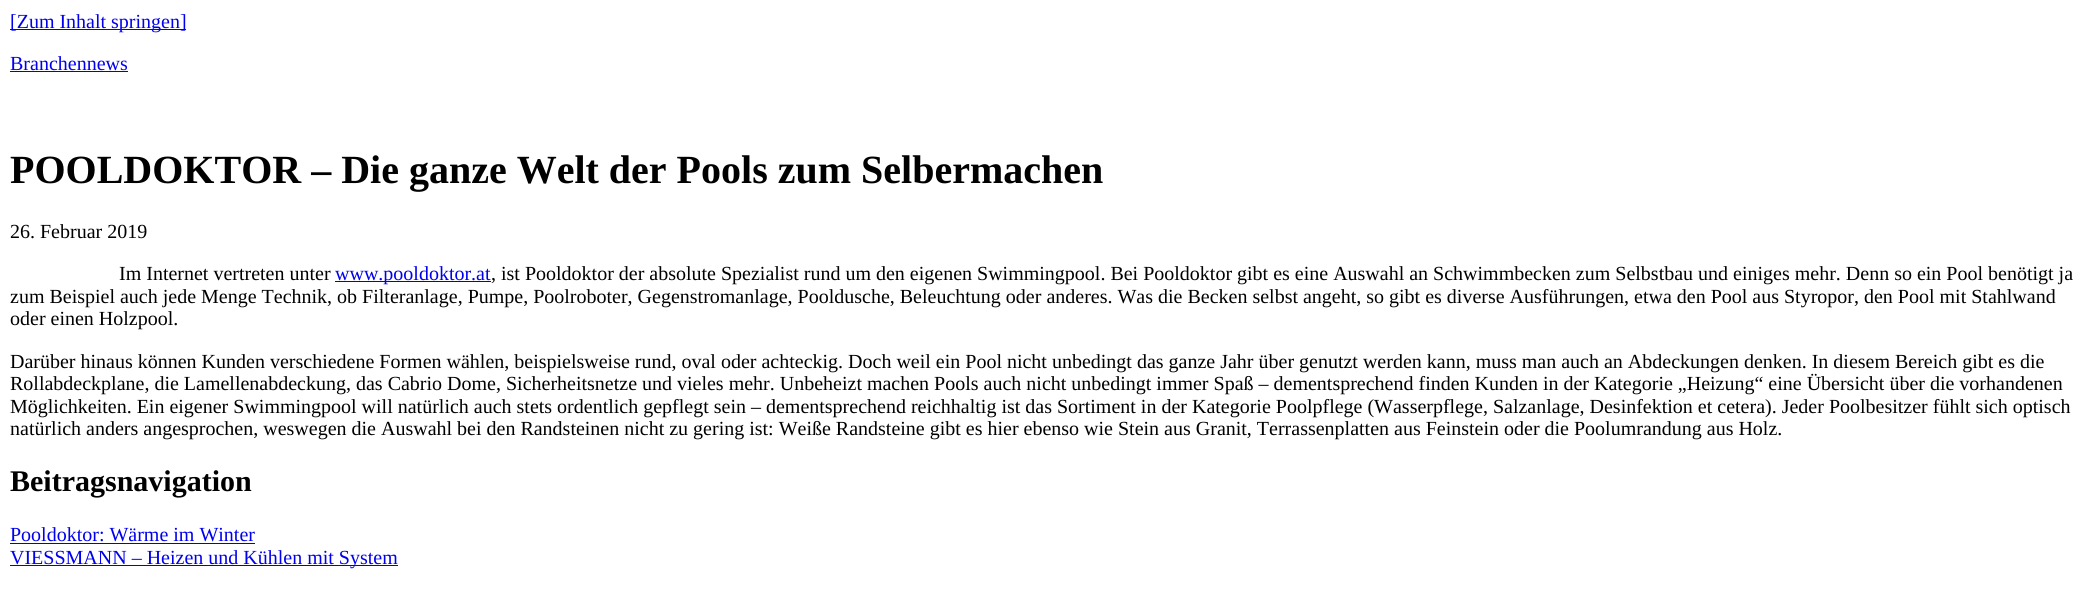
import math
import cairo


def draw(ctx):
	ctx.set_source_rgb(1, 1, 1)
	ctx.paint()
	ctx.set_source_rgb(0, 0, 0.933)
	ctx.rectangle(10, 29, 176, 1)
	ctx.fill()
	ctx.select_font_face('Liberation Serif')
	ctx.set_font_size(20)
	ctx.move_to(10, 28)
	ctx.show_text('[Zum Inhalt springen]')
	ctx.move_to(10, 70)
	ctx.show_text('Branchennews')
	ctx.rectangle(10, 71, 118, 1)
	ctx.fill()
	ctx.select_font_face('Liberation Serif', cairo.FONT_SLANT_NORMAL, cairo.FONT_WEIGHT_BOLD)
	ctx.set_font_size(40)
	ctx.set_source_rgb(0, 0, 0)
	ctx.move_to(10, 183)
	ctx.show_text('POOLDOKTOR – Die ganze Welt der Pools zum Selbermachen')
	ctx.select_font_face('Liberation Serif')
	ctx.set_font_size(20)
	ctx.move_to(10, 238)
	ctx.show_text('26. Februar 2019')
	ctx.move_to(119, 280)
	ctx.show_text('Im Internet vertreten unter')
	ctx.set_source_rgb(0, 0, 0.933)
	ctx.rectangle(335, 281, 156, 1)
	ctx.fill()
	ctx.move_to(335, 280)
	ctx.show_text('www.pooldoktor.at')
	ctx.set_source_rgb(0, 0, 0)
	for x, y, s in [
		(491, 280, ', ist Pooldoktor der absolute Spezialist rund um den eigenen Swimmingpool. Bei Pooldoktor gibt es eine Auswahl an Schwimmbecken zum Selbstbau und einiges mehr. Denn so ein Pool benötigt ja'),
		(10, 303, 'zum Beispiel auch jede Menge Technik, ob Filteranlage, Pumpe, Poolroboter, Gegenstromanlage, Pooldusche, Beleuchtung oder anderes. Was die Becken selbst angeht, so gibt es diverse Ausführungen, etwa den Pool aus Styropor, den Pool mit Stahlwand'),
		(10, 325, 'oder einen Holzpool.'),
		(10, 368, 'Darüber hinaus können Kunden verschiedene Formen wählen, beispielsweise rund, oval oder achteckig. Doch weil ein Pool nicht unbedingt das ganze Jahr über genutzt werden kann, muss man auch an Abdeckungen denken. In diesem Bereich gibt es die'),
		(10, 390, 'Rollabdeckplane, die Lamellenabdeckung, das Cabrio Dome, Sicherheitsnetze und vieles mehr. Unbeheizt machen Pools auch nicht unbedingt immer Spaß – dementsprechend finden Kunden in der Kategorie „Heizung“ eine Übersicht über die vorhandenen'),
		(10, 413, 'Möglichkeiten. Ein eigener Swimmingpool will natürlich auch stets ordentlich gepflegt sein – dementsprechend reichhaltig ist das Sortiment in der Kategorie Poolpflege (Wasserpflege, Salzanlage, Desinfektion et cetera). Jeder Poolbesitzer fühlt sich optisch'),
		(10, 435, 'natürlich anders angesprochen, weswegen die Auswahl bei den Randsteinen nicht zu gering ist: Weiße Randsteine gibt es hier ebenso wie Stein aus Granit, Terrassenplatten aus Feinstein oder die Poolumrandung aus Holz.'),
	]:
		ctx.move_to(x, y)
		ctx.show_text(s)
	ctx.select_font_face('Liberation Serif', cairo.FONT_SLANT_NORMAL, cairo.FONT_WEIGHT_BOLD)
	ctx.set_font_size(30)
	ctx.move_to(10, 491)
	ctx.show_text('Beitragsnavigation')
	ctx.select_font_face('Liberation Serif')
	ctx.set_font_size(20)
	ctx.set_source_rgb(0, 0, 0.933)
	ctx.move_to(10, 541)
	ctx.show_text('Pooldoktor: Wärme im Winter')
	ctx.rectangle(10, 543, 245, 1)
	ctx.fill()
	ctx.rectangle(10, 565, 388, 1)
	ctx.fill()
	ctx.move_to(10, 564)
	ctx.show_text('VIESSMANN – Heizen und Kühlen mit System')


surface = cairo.ImageSurface(cairo.FORMAT_RGB24, 2100, 594)
ctx = cairo.Context(surface)
options = cairo.FontOptions()
options.set_hint_metrics(cairo.HINT_METRICS_OFF)
options.set_hint_style(cairo.HINT_STYLE_NONE)
ctx.set_font_options(options)
ctx.set_miter_limit(4)
draw(ctx)
surface.write_to_png('image.png')
